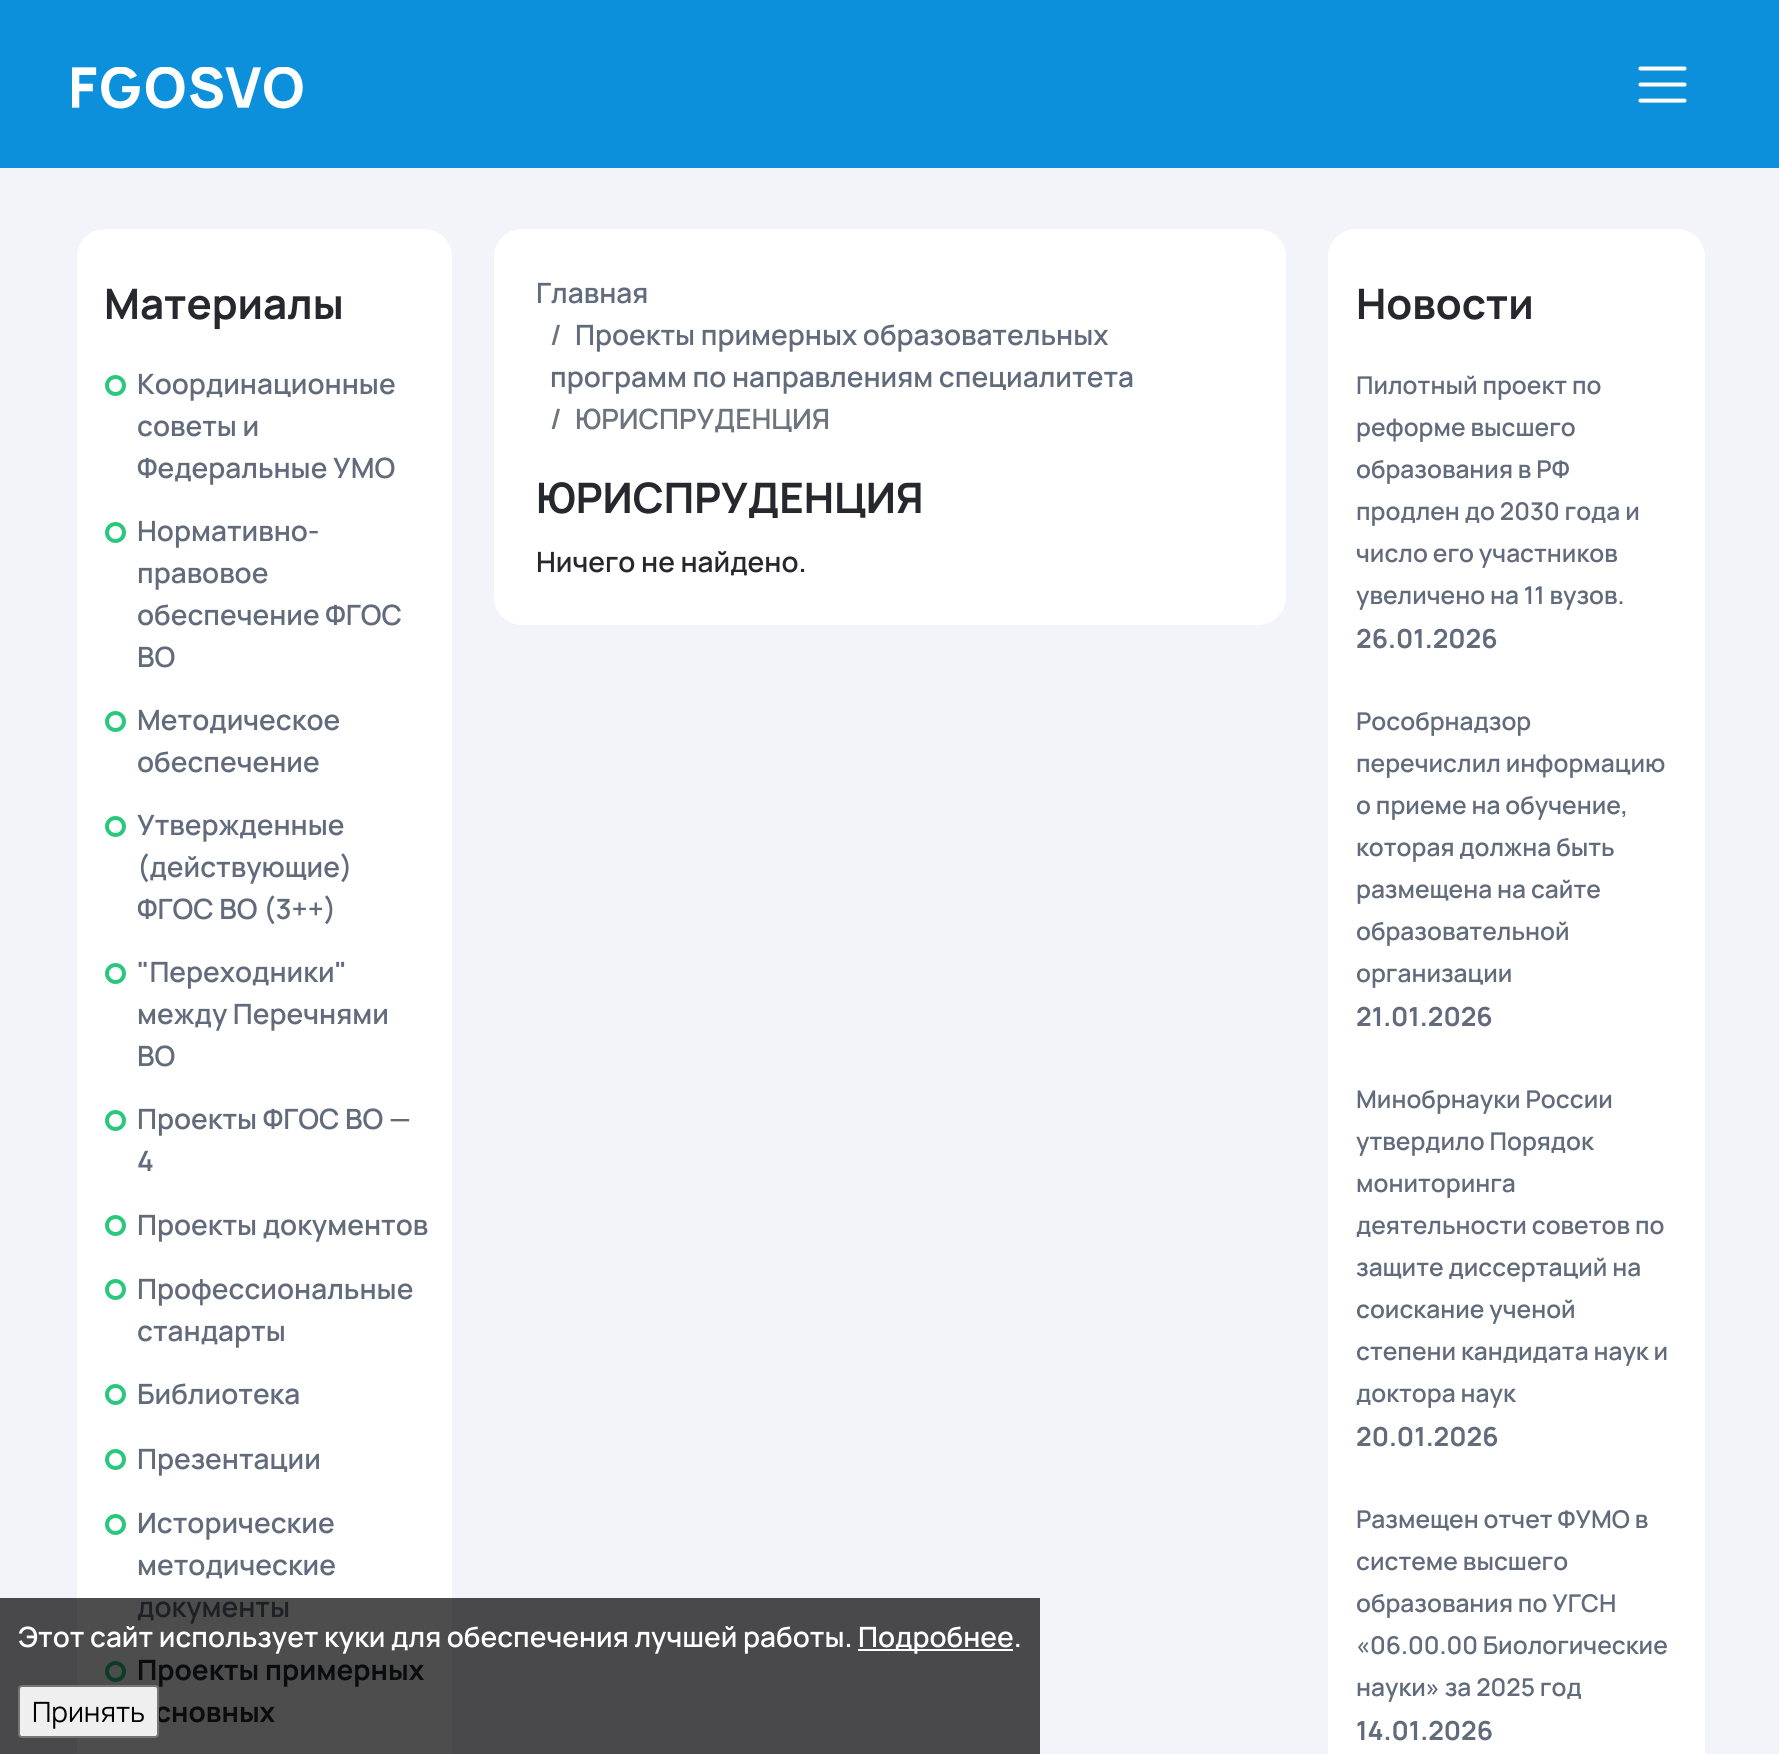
import math
import cairo


def round_path(ctx, x, y, w, h, r):
	ctx.new_sub_path()
	for i, (u, v) in enumerate([(x + w - r, y + h - r), (x + r, y + h - r), (x + r, y + r), (x + w - r, y + r)]):
		ctx.arc(u, v, r, i * math.pi / 2, (i + 1) * math.pi / 2)
	ctx.close_path()

def paste(ctx, path, x, y, w, h):
	ctx.save()
	ctx.set_source_surface(cairo.ImageSurface.create_from_png(path), x, y)
	ctx.rectangle(x, y, w, h)
	ctx.fill()
	ctx.restore()

def draw(ctx):
	ctx.set_source_rgb(0.949, 0.957, 0.976)
	ctx.paint()
	ctx.set_source_rgb(0.286, 0.286, 0.294)
	ctx.rectangle(0, 1598, 1040, 156)
	ctx.fill()
	ctx.set_source_rgb(0.047, 0.565, 0.859)
	ctx.rectangle(0, 0, 1779, 168)
	ctx.fill()
	paste(ctx, 'media/1.png', 72, 67, 231, 42)
	paste(ctx, 'media/2.png', 1638, 66, 49, 37)
	ctx.set_source_rgb(1, 1, 1)
	round_path(ctx, 77, 229, 375, 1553, 28)
	ctx.fill()
	ctx.set_source_rgb(0.302, 0.302, 0.302)
	ctx.rectangle(77, 1598, 375, 156)
	ctx.fill()
	ctx.select_font_face('Manrope', cairo.FONT_SLANT_NORMAL, cairo.FONT_WEIGHT_BOLD)
	ctx.set_font_size(42)
	ctx.set_source_rgb(0.149, 0.157, 0.176)
	ctx.move_to(104, 319)
	ctx.show_text('Материалы')
	ctx.new_path()
	ctx.arc(115.5, 385.5, 8.5, 0, 2 * math.pi)
	ctx.set_source_rgb(0.165, 0.784, 0.486)
	ctx.set_line_width(4)
	ctx.stroke()
	ctx.select_font_face('Manrope SemiBold')
	ctx.set_font_size(28)
	ctx.set_source_rgb(0.38, 0.42, 0.482)
	for x, y, s in [
		(137, 394, 'Координационные'),
		(137, 436, 'советы и'),
		(137, 478, 'Федеральные УМО'),
	]:
		ctx.move_to(x, y)
		ctx.show_text(s)
	ctx.new_path()
	ctx.arc(115.5, 532.5, 8.5, 0, 2 * math.pi)
	ctx.set_source_rgb(0.165, 0.784, 0.486)
	ctx.stroke()
	ctx.set_source_rgb(0.38, 0.42, 0.482)
	for x, y, s in [
		(137, 541, 'Нормативно-'),
		(137, 583, 'правовое'),
		(137, 625, 'обеспечение ФГОС'),
		(137, 667, 'ВО'),
	]:
		ctx.move_to(x, y)
		ctx.show_text(s)
	ctx.new_path()
	ctx.arc(115.5, 721.5, 8.5, 0, 2 * math.pi)
	ctx.set_source_rgb(0.165, 0.784, 0.486)
	ctx.stroke()
	ctx.set_source_rgb(0.38, 0.42, 0.482)
	ctx.move_to(137, 730)
	ctx.show_text('Методическое')
	ctx.move_to(137, 772)
	ctx.show_text('обеспечение')
	ctx.new_path()
	ctx.arc(115.5, 826.5, 8.5, 0, 2 * math.pi)
	ctx.set_source_rgb(0.165, 0.784, 0.486)
	ctx.stroke()
	ctx.set_source_rgb(0.38, 0.42, 0.482)
	for x, y, s in [
		(137, 835, 'Утвержденные'),
		(137, 877, '(действующие)'),
		(137, 919, 'ФГОС ВО (3++)'),
	]:
		ctx.move_to(x, y)
		ctx.show_text(s)
	ctx.new_path()
	ctx.arc(115.5, 973.5, 8.5, 0, 2 * math.pi)
	ctx.set_source_rgb(0.165, 0.784, 0.486)
	ctx.stroke()
	ctx.set_source_rgb(0.38, 0.42, 0.482)
	for x, y, s in [
		(137, 982, '"Переходники"'),
		(137, 1024, 'между Перечнями'),
		(137, 1066, 'ВО'),
	]:
		ctx.move_to(x, y)
		ctx.show_text(s)
	ctx.new_path()
	ctx.arc(115.5, 1120.5, 8.5, 0, 2 * math.pi)
	ctx.set_source_rgb(0.165, 0.784, 0.486)
	ctx.stroke()
	ctx.set_source_rgb(0.38, 0.42, 0.482)
	ctx.move_to(137, 1129)
	ctx.show_text('Проекты ФГОС ВО —')
	ctx.move_to(137, 1171)
	ctx.show_text('4')
	ctx.new_path()
	ctx.arc(115.5, 1225.5, 8.5, 0, 2 * math.pi)
	ctx.set_source_rgb(0.165, 0.784, 0.486)
	ctx.stroke()
	ctx.set_source_rgb(0.38, 0.42, 0.482)
	ctx.move_to(137, 1235)
	ctx.show_text('Проекты документов')
	ctx.new_path()
	ctx.arc(115.5, 1289.5, 8.5, 0, 2 * math.pi)
	ctx.set_source_rgb(0.165, 0.784, 0.486)
	ctx.stroke()
	ctx.set_source_rgb(0.38, 0.42, 0.482)
	ctx.move_to(137, 1299)
	ctx.show_text('Профессиональные')
	ctx.move_to(137, 1341)
	ctx.show_text('стандарты')
	ctx.new_path()
	ctx.arc(115.5, 1394.5, 8.5, 0, 2 * math.pi)
	ctx.set_source_rgb(0.165, 0.784, 0.486)
	ctx.stroke()
	ctx.set_source_rgb(0.38, 0.42, 0.482)
	ctx.move_to(137, 1404)
	ctx.show_text('Библиотека')
	ctx.new_path()
	ctx.arc(115.5, 1459.5, 8.5, 0, 2 * math.pi)
	ctx.set_source_rgb(0.165, 0.784, 0.486)
	ctx.stroke()
	ctx.set_source_rgb(0.38, 0.42, 0.482)
	ctx.move_to(137, 1469)
	ctx.show_text('Презентации')
	ctx.new_path()
	ctx.arc(115.5, 1524.5, 8.5, 0, 2 * math.pi)
	ctx.set_source_rgb(0.165, 0.784, 0.486)
	ctx.stroke()
	ctx.set_source_rgb(0.38, 0.42, 0.482)
	ctx.move_to(137, 1533)
	ctx.show_text('Исторические')
	ctx.move_to(137, 1575)
	ctx.show_text('методические')
	ctx.set_source_rgb(0.114, 0.125, 0.145)
	ctx.move_to(137, 1617)
	ctx.show_text('документы')
	ctx.new_path()
	ctx.arc(115.5, 1671.5, 8.5, 0, 2 * math.pi)
	ctx.set_source_rgb(0.051, 0.235, 0.145)
	ctx.stroke()
	ctx.select_font_face('Manrope', cairo.FONT_SLANT_NORMAL, cairo.FONT_WEIGHT_BOLD)
	ctx.set_source_rgb(0.043, 0.047, 0.055)
	ctx.move_to(137, 1680)
	ctx.show_text('Проекты примерных')
	ctx.move_to(155, 1722)
	ctx.show_text('сновных')
	ctx.set_source_rgb(1, 1, 1)
	round_path(ctx, 494, 229, 792, 396, 28)
	ctx.fill()
	ctx.select_font_face('Manrope SemiBold')
	ctx.set_source_rgb(0.38, 0.42, 0.482)
	ctx.move_to(536, 303)
	ctx.show_text('Главная')
	ctx.set_source_rgb(0.424, 0.459, 0.49)
	ctx.move_to(550, 345)
	ctx.show_text('/')
	ctx.set_source_rgb(0.38, 0.42, 0.482)
	ctx.move_to(575, 345)
	ctx.show_text('Проекты примерных образовательных')
	ctx.move_to(550, 387)
	ctx.show_text('программ по направлениям специалитета')
	ctx.set_source_rgb(0.424, 0.459, 0.49)
	ctx.move_to(550, 429)
	ctx.show_text('/')
	ctx.move_to(575, 429)
	ctx.show_text('ЮРИСПРУДЕНЦИЯ')
	ctx.select_font_face('Manrope', cairo.FONT_SLANT_NORMAL, cairo.FONT_WEIGHT_BOLD)
	ctx.set_font_size(42)
	ctx.set_source_rgb(0.149, 0.157, 0.176)
	ctx.move_to(536, 513)
	ctx.show_text('ЮРИСПРУДЕНЦИЯ')
	ctx.select_font_face('Manrope SemiBold')
	ctx.set_font_size(28)
	ctx.move_to(536, 572)
	ctx.show_text('Ничего не найдено.')
	ctx.set_source_rgb(1, 1, 1)
	round_path(ctx, 1328, 229, 377, 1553, 28)
	ctx.fill()
	ctx.select_font_face('Manrope', cairo.FONT_SLANT_NORMAL, cairo.FONT_WEIGHT_BOLD)
	ctx.set_font_size(42)
	ctx.set_source_rgb(0.149, 0.157, 0.176)
	ctx.move_to(1356, 319)
	ctx.show_text('Новости')
	ctx.select_font_face('Manrope SemiBold')
	ctx.set_font_size(24.5)
	ctx.set_source_rgb(0.38, 0.42, 0.482)
	for x, y, s in [
		(1356, 394, 'Пилотный проект по'),
		(1356, 436, 'реформе высшего'),
		(1356, 478, 'образования в РФ'),
		(1356, 520, 'продлен до 2030 года и'),
		(1356, 562, 'число его участников'),
		(1356, 604, 'увеличено на 11 вузов.'),
	]:
		ctx.move_to(x, y)
		ctx.show_text(s)
	ctx.select_font_face('Manrope', cairo.FONT_SLANT_NORMAL, cairo.FONT_WEIGHT_BOLD)
	ctx.set_font_size(26.25)
	ctx.move_to(1356, 648)
	ctx.show_text('26.01.2026')
	ctx.select_font_face('Manrope SemiBold')
	ctx.set_font_size(24.5)
	for x, y, s in [
		(1356, 730, 'Рособрнадзор'),
		(1356, 772, 'перечислил информацию'),
		(1356, 814, 'о приеме на обучение,'),
		(1356, 856, 'которая должна быть'),
		(1356, 898, 'размещена на сайте'),
		(1356, 940, 'образовательной'),
		(1356, 982, 'организации'),
	]:
		ctx.move_to(x, y)
		ctx.show_text(s)
	ctx.select_font_face('Manrope', cairo.FONT_SLANT_NORMAL, cairo.FONT_WEIGHT_BOLD)
	ctx.set_font_size(26.25)
	ctx.move_to(1356, 1026)
	ctx.show_text('21.01.2026')
	ctx.select_font_face('Manrope SemiBold')
	ctx.set_font_size(24.5)
	for x, y, s in [
		(1356, 1108, 'Минобрнауки России'),
		(1356, 1150, 'утвердило Порядок'),
		(1356, 1192, 'мониторинга'),
		(1356, 1234, 'деятельности советов по'),
		(1356, 1276, 'защите диссертаций на'),
		(1356, 1318, 'соискание ученой'),
		(1356, 1360, 'степени кандидата наук и'),
		(1356, 1402, 'доктора наук'),
	]:
		ctx.move_to(x, y)
		ctx.show_text(s)
	ctx.select_font_face('Manrope', cairo.FONT_SLANT_NORMAL, cairo.FONT_WEIGHT_BOLD)
	ctx.set_font_size(26.25)
	ctx.move_to(1356, 1446)
	ctx.show_text('20.01.2026')
	ctx.select_font_face('Manrope SemiBold')
	ctx.set_font_size(24.5)
	for x, y, s in [
		(1356, 1528, 'Размещен отчет ФУМО в'),
		(1356, 1570, 'системе высшего'),
		(1356, 1612, 'образования по УГСН'),
		(1356, 1654, '«06.00.00 Биологические'),
		(1356, 1696, 'науки» за 2025 год'),
	]:
		ctx.move_to(x, y)
		ctx.show_text(s)
	ctx.select_font_face('Manrope', cairo.FONT_SLANT_NORMAL, cairo.FONT_WEIGHT_BOLD)
	ctx.set_font_size(26.25)
	ctx.move_to(1356, 1740)
	ctx.show_text('14.01.2026')
	ctx.select_font_face('Manrope SemiBold')
	ctx.set_font_size(28)
	ctx.set_source_rgb(1, 1, 1)
	ctx.move_to(18, 1647)
	ctx.show_text('Этот сайт использует куки для обеспечения лучшей работы.')
	ctx.rectangle(858, 1649, 155, 2)
	ctx.fill()
	ctx.move_to(858, 1647)
	ctx.show_text('Подробнее.')
	ctx.set_source_rgb(0.937, 0.937, 0.937)
	round_path(ctx, 19, 1686, 139, 51, 3)
	ctx.fill_preserve()
	ctx.set_source_rgb(0.463, 0.463, 0.463)
	ctx.set_line_width(2)
	ctx.stroke()
	ctx.select_font_face('Manrope')
	ctx.set_source_rgb(0, 0, 0)
	ctx.move_to(32, 1722)
	ctx.show_text('Принять')


surface = cairo.ImageSurface(cairo.FORMAT_RGB24, 1779, 1754)
ctx = cairo.Context(surface)
options = cairo.FontOptions()
options.set_hint_metrics(cairo.HINT_METRICS_OFF)
options.set_hint_style(cairo.HINT_STYLE_NONE)
ctx.set_font_options(options)
ctx.set_miter_limit(4)
draw(ctx)
surface.write_to_png('image.png')
